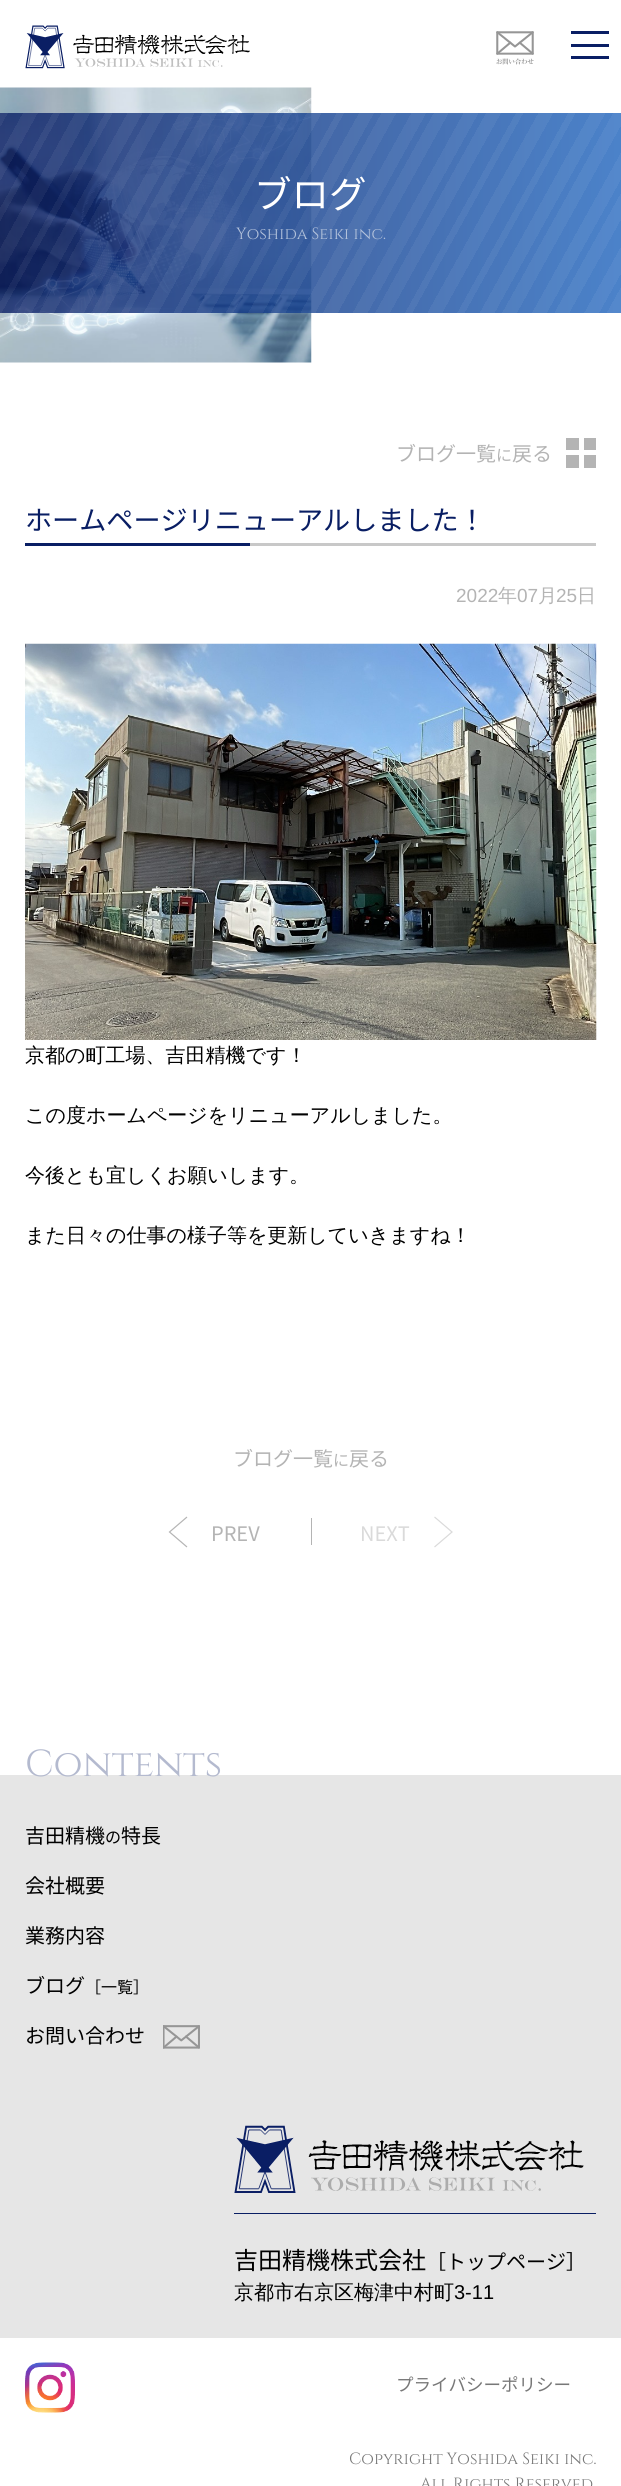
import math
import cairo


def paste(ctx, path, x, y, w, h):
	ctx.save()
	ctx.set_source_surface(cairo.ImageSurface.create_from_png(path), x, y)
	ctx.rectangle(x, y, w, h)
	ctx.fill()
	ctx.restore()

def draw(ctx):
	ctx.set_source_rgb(1, 1, 1)
	ctx.paint()
	paste(ctx, 'media/1.png', 25, 25, 225, 44)
	paste(ctx, 'media/2.png', 496, 31, 38, 34)
	ctx.set_source_rgb(0.039, 0.118, 0.392)
	ctx.rectangle(571, 31, 38, 3)
	ctx.rectangle(571, 44, 38, 3)
	ctx.rectangle(571, 56, 38, 3)
	ctx.fill()
	paste(ctx, 'media/3.png', 0, 87, 312, 276)
	gradient = cairo.LinearGradient(621, 213, 0, 212)
	gradient.add_color_stop_rgba(0, 0.118, 0.388, 0.737, 0.8)
	gradient.add_color_stop_rgba(1, 0.039, 0.118, 0.392, 0.8)
	ctx.set_source(gradient)
	ctx.rectangle(0, 113, 621, 200)
	ctx.fill()
	gradient = cairo.LinearGradient(591, 368, 20, 51)
	gradient.add_color_stop_rgba(0, 1, 1, 1, 0.05)
	gradient.add_color_stop_rgba(0.02, 1, 1, 1, 0.05)
	gradient.add_color_stop_rgba(0.02, 1, 1, 1, 0)
	gradient.add_color_stop_rgba(0.03, 1, 1, 1, 0)
	gradient.add_color_stop_rgba(0.03, 1, 1, 1, 0.05)
	gradient.add_color_stop_rgba(0.05, 1, 1, 1, 0.05)
	gradient.add_color_stop_rgba(0.05, 1, 1, 1, 0)
	gradient.add_color_stop_rgba(0.07, 1, 1, 1, 0)
	gradient.add_color_stop_rgba(0.07, 1, 1, 1, 0.05)
	gradient.add_color_stop_rgba(0.09, 1, 1, 1, 0.05)
	gradient.add_color_stop_rgba(0.09, 1, 1, 1, 0)
	gradient.add_color_stop_rgba(0.1, 1, 1, 1, 0)
	gradient.add_color_stop_rgba(0.1, 1, 1, 1, 0.05)
	gradient.add_color_stop_rgba(0.12, 1, 1, 1, 0.05)
	gradient.add_color_stop_rgba(0.12, 1, 1, 1, 0)
	gradient.add_color_stop_rgba(0.14, 1, 1, 1, 0)
	gradient.add_color_stop_rgba(0.14, 1, 1, 1, 0.05)
	gradient.add_color_stop_rgba(0.16, 1, 1, 1, 0.05)
	gradient.add_color_stop_rgba(0.16, 1, 1, 1, 0)
	gradient.add_color_stop_rgba(0.17, 1, 1, 1, 0)
	gradient.add_color_stop_rgba(0.17, 1, 1, 1, 0.05)
	gradient.add_color_stop_rgba(0.19, 1, 1, 1, 0.05)
	gradient.add_color_stop_rgba(0.19, 1, 1, 1, 0)
	gradient.add_color_stop_rgba(0.21, 1, 1, 1, 0)
	gradient.add_color_stop_rgba(0.21, 1, 1, 1, 0.05)
	gradient.add_color_stop_rgba(0.22, 1, 1, 1, 0.05)
	gradient.add_color_stop_rgba(0.22, 1, 1, 1, 0)
	gradient.add_color_stop_rgba(0.24, 1, 1, 1, 0)
	gradient.add_color_stop_rgba(0.24, 1, 1, 1, 0.05)
	gradient.add_color_stop_rgba(0.26, 1, 1, 1, 0.05)
	gradient.add_color_stop_rgba(0.26, 1, 1, 1, 0)
	gradient.add_color_stop_rgba(0.28, 1, 1, 1, 0)
	gradient.add_color_stop_rgba(0.28, 1, 1, 1, 0.05)
	gradient.add_color_stop_rgba(0.29, 1, 1, 1, 0.05)
	gradient.add_color_stop_rgba(0.29, 1, 1, 1, 0)
	gradient.add_color_stop_rgba(0.31, 1, 1, 1, 0)
	gradient.add_color_stop_rgba(0.31, 1, 1, 1, 0.05)
	gradient.add_color_stop_rgba(0.33, 1, 1, 1, 0.05)
	gradient.add_color_stop_rgba(0.33, 1, 1, 1, 0)
	gradient.add_color_stop_rgba(0.34, 1, 1, 1, 0)
	gradient.add_color_stop_rgba(0.34, 1, 1, 1, 0.05)
	gradient.add_color_stop_rgba(0.36, 1, 1, 1, 0.05)
	gradient.add_color_stop_rgba(0.36, 1, 1, 1, 0)
	gradient.add_color_stop_rgba(0.38, 1, 1, 1, 0)
	gradient.add_color_stop_rgba(0.38, 1, 1, 1, 0.05)
	gradient.add_color_stop_rgba(0.4, 1, 1, 1, 0.05)
	gradient.add_color_stop_rgba(0.4, 1, 1, 1, 0)
	gradient.add_color_stop_rgba(0.41, 1, 1, 1, 0)
	gradient.add_color_stop_rgba(0.41, 1, 1, 1, 0.05)
	gradient.add_color_stop_rgba(0.43, 1, 1, 1, 0.05)
	gradient.add_color_stop_rgba(0.43, 1, 1, 1, 0)
	gradient.add_color_stop_rgba(0.45, 1, 1, 1, 0)
	gradient.add_color_stop_rgba(0.45, 1, 1, 1, 0.05)
	gradient.add_color_stop_rgba(0.47, 1, 1, 1, 0.05)
	gradient.add_color_stop_rgba(0.47, 1, 1, 1, 0)
	gradient.add_color_stop_rgba(0.48, 1, 1, 1, 0)
	gradient.add_color_stop_rgba(0.48, 1, 1, 1, 0.05)
	gradient.add_color_stop_rgba(0.5, 1, 1, 1, 0.05)
	gradient.add_color_stop_rgba(0.5, 1, 1, 1, 0)
	gradient.add_color_stop_rgba(0.52, 1, 1, 1, 0)
	gradient.add_color_stop_rgba(0.52, 1, 1, 1, 0.05)
	gradient.add_color_stop_rgba(0.53, 1, 1, 1, 0.05)
	gradient.add_color_stop_rgba(0.53, 1, 1, 1, 0)
	gradient.add_color_stop_rgba(0.55, 1, 1, 1, 0)
	gradient.add_color_stop_rgba(0.55, 1, 1, 1, 0.05)
	gradient.add_color_stop_rgba(0.57, 1, 1, 1, 0.05)
	gradient.add_color_stop_rgba(0.57, 1, 1, 1, 0)
	gradient.add_color_stop_rgba(0.59, 1, 1, 1, 0)
	gradient.add_color_stop_rgba(0.59, 1, 1, 1, 0.05)
	gradient.add_color_stop_rgba(0.6, 1, 1, 1, 0.05)
	gradient.add_color_stop_rgba(0.6, 1, 1, 1, 0)
	gradient.add_color_stop_rgba(0.62, 1, 1, 1, 0)
	gradient.add_color_stop_rgba(0.62, 1, 1, 1, 0.05)
	gradient.add_color_stop_rgba(0.64, 1, 1, 1, 0.05)
	gradient.add_color_stop_rgba(0.64, 1, 1, 1, 0)
	gradient.add_color_stop_rgba(0.66, 1, 1, 1, 0)
	gradient.add_color_stop_rgba(0.66, 1, 1, 1, 0.05)
	gradient.add_color_stop_rgba(0.67, 1, 1, 1, 0.05)
	gradient.add_color_stop_rgba(0.67, 1, 1, 1, 0)
	gradient.add_color_stop_rgba(0.69, 1, 1, 1, 0)
	gradient.add_color_stop_rgba(0.69, 1, 1, 1, 0.05)
	gradient.add_color_stop_rgba(0.71, 1, 1, 1, 0.05)
	gradient.add_color_stop_rgba(0.71, 1, 1, 1, 0)
	gradient.add_color_stop_rgba(0.72, 1, 1, 1, 0)
	gradient.add_color_stop_rgba(0.72, 1, 1, 1, 0.05)
	gradient.add_color_stop_rgba(0.74, 1, 1, 1, 0.05)
	gradient.add_color_stop_rgba(0.74, 1, 1, 1, 0)
	gradient.add_color_stop_rgba(0.76, 1, 1, 1, 0)
	gradient.add_color_stop_rgba(0.76, 1, 1, 1, 0.05)
	gradient.add_color_stop_rgba(0.78, 1, 1, 1, 0.05)
	gradient.add_color_stop_rgba(0.78, 1, 1, 1, 0)
	gradient.add_color_stop_rgba(0.79, 1, 1, 1, 0)
	gradient.add_color_stop_rgba(0.79, 1, 1, 1, 0.05)
	gradient.add_color_stop_rgba(0.81, 1, 1, 1, 0.05)
	gradient.add_color_stop_rgba(0.81, 1, 1, 1, 0)
	gradient.add_color_stop_rgba(0.83, 1, 1, 1, 0)
	gradient.add_color_stop_rgba(0.83, 1, 1, 1, 0.05)
	gradient.add_color_stop_rgba(0.84, 1, 1, 1, 0.05)
	gradient.add_color_stop_rgba(0.84, 1, 1, 1, 0)
	gradient.add_color_stop_rgba(0.86, 1, 1, 1, 0)
	gradient.add_color_stop_rgba(0.86, 1, 1, 1, 0.05)
	gradient.add_color_stop_rgba(0.88, 1, 1, 1, 0.05)
	gradient.add_color_stop_rgba(0.88, 1, 1, 1, 0)
	gradient.add_color_stop_rgba(0.9, 1, 1, 1, 0)
	gradient.add_color_stop_rgba(0.9, 1, 1, 1, 0.05)
	gradient.add_color_stop_rgba(0.91, 1, 1, 1, 0.05)
	gradient.add_color_stop_rgba(0.91, 1, 1, 1, 0)
	gradient.add_color_stop_rgba(0.93, 1, 1, 1, 0)
	gradient.add_color_stop_rgba(0.93, 1, 1, 1, 0.05)
	gradient.add_color_stop_rgba(0.95, 1, 1, 1, 0.05)
	gradient.add_color_stop_rgba(0.95, 1, 1, 1, 0)
	gradient.add_color_stop_rgba(0.97, 1, 1, 1, 0)
	gradient.add_color_stop_rgba(0.97, 1, 1, 1, 0.05)
	gradient.add_color_stop_rgba(0.98, 1, 1, 1, 0.05)
	gradient.add_color_stop_rgba(0.98, 1, 1, 1, 0)
	gradient.add_color_stop_rgba(1, 0, 0, 0, 0)
	ctx.set_source(gradient)
	ctx.rectangle(0, 113, 621, 200)
	ctx.fill()
	ctx.select_font_face('Noto Sans JP')
	ctx.set_font_size(37.5)
	ctx.set_source_rgb(1, 1, 1)
	ctx.move_to(254, 208)
	ctx.show_text('ブログ')
	ctx.select_font_face('Cinzel')
	ctx.set_font_size(16.25)
	ctx.set_source_rgb(0.702, 0.761, 0.859)
	ctx.move_to(236, 239)
	ctx.show_text('Yoshida Seiki inc.')
	ctx.select_font_face('Noto Sans JP')
	ctx.set_font_size(20)
	ctx.set_source_rgb(0.706, 0.706, 0.706)
	ctx.move_to(396, 461)
	ctx.show_text('ブログ一覧')
	ctx.set_font_size(16)
	ctx.move_to(496, 461)
	ctx.show_text('に')
	ctx.set_font_size(20)
	ctx.move_to(512, 461)
	ctx.show_text('戻る')
	ctx.rectangle(566, 438, 13, 12)
	ctx.rectangle(584, 438, 12, 12)
	ctx.rectangle(566, 455, 13, 13)
	ctx.rectangle(584, 455, 12, 13)
	ctx.fill()
	ctx.set_font_size(27.1)
	ctx.set_source_rgb(0.039, 0.118, 0.392)
	ctx.move_to(25, 530)
	ctx.show_text('ホームページリニューアルしました！')
	ctx.rectangle(25, 543, 225, 3)
	ctx.fill()
	ctx.set_source_rgb(0.784, 0.784, 0.784)
	ctx.rectangle(250, 543, 346, 3)
	ctx.fill()
	ctx.select_font_face('Liberation Sans')
	ctx.set_font_size(19)
	ctx.set_source_rgb(0.706, 0.706, 0.706)
	ctx.move_to(456, 602)
	ctx.show_text('2022')
	ctx.select_font_face('WenQuanYi Zen Hei Medium')
	ctx.move_to(498, 602)
	ctx.show_text('年')
	ctx.select_font_face('Liberation Sans')
	ctx.move_to(517, 602)
	ctx.show_text('07')
	ctx.select_font_face('WenQuanYi Zen Hei Medium')
	ctx.move_to(538, 602)
	ctx.show_text('月')
	ctx.select_font_face('Liberation Sans')
	ctx.move_to(556, 602)
	ctx.show_text('25')
	ctx.select_font_face('WenQuanYi Zen Hei Medium')
	ctx.move_to(577, 602)
	ctx.show_text('日')
	paste(ctx, 'media/4.png', 25, 643, 572, 397)
	ctx.set_font_size(20)
	ctx.set_source_rgb(0, 0, 0)
	for x, y, s in [
		(25, 1062, '京都の町工場、吉田精機です！'),
		(25, 1122, 'この度ホームページをリニューアルしました。'),
		(25, 1182, '今後とも宜しくお願いします。'),
		(25, 1242, 'また日々の仕事の様子等を更新していきますね！'),
	]:
		ctx.move_to(x, y)
		ctx.show_text(s)
	ctx.select_font_face('Noto Sans JP')
	ctx.set_source_rgb(0.706, 0.706, 0.706)
	ctx.move_to(233, 1466)
	ctx.show_text('ブログ一覧')
	ctx.set_font_size(16)
	ctx.move_to(333, 1466)
	ctx.show_text('に')
	ctx.set_font_size(20)
	ctx.move_to(349, 1466)
	ctx.show_text('戻る')
	ctx.new_path()
	ctx.move_to(187, 1517)
	ctx.line_to(169.5, 1532)
	ctx.line_to(187, 1547)
	ctx.set_line_width(1.2)
	ctx.stroke()
	ctx.move_to(211, 1541)
	ctx.show_text('PREV')
	ctx.rectangle(311, 1518, 1, 27)
	ctx.fill()
	ctx.set_source_rgb(0.855, 0.855, 0.855)
	ctx.move_to(360, 1541)
	ctx.show_text('NEXT')
	ctx.new_path()
	ctx.move_to(434.5, 1517)
	ctx.line_to(452, 1532)
	ctx.line_to(434.5, 1547)
	ctx.stroke()
	ctx.set_source_rgb(0.902, 0.902, 0.902)
	ctx.rectangle(0, 1775, 621, 563)
	ctx.fill()
	ctx.select_font_face('Cinzel')
	ctx.set_font_size(37.5)
	ctx.set_source_rgb(0.706, 0.729, 0.812)
	ctx.move_to(25, 1776)
	ctx.show_text('Contents')
	ctx.select_font_face('Noto Sans JP')
	ctx.set_font_size(20)
	ctx.set_source_rgb(0, 0, 0)
	ctx.move_to(25, 1843)
	ctx.show_text('吉田精機')
	ctx.set_font_size(16)
	ctx.move_to(105, 1843)
	ctx.show_text('の')
	ctx.set_font_size(20)
	for x, y, s in [
		(121, 1843, '特長'),
		(25, 1893, '会社概要'),
		(25, 1943, '業務内容'),
		(25, 1993, 'ブログ'),
	]:
		ctx.move_to(x, y)
		ctx.show_text(s)
	ctx.set_font_size(16)
	ctx.move_to(85, 1993)
	ctx.show_text('［一覧］')
	ctx.set_font_size(20)
	ctx.move_to(25, 2043)
	ctx.show_text('お問い合わせ')
	paste(ctx, 'media/5.png', 163, 2025, 37, 24)
	paste(ctx, 'media/6.png', 234, 2125, 350, 68)
	ctx.set_source_rgb(0.039, 0.118, 0.392)
	ctx.rectangle(234, 2213, 362, 1)
	ctx.fill()
	ctx.set_font_size(24)
	ctx.set_source_rgb(0, 0, 0)
	ctx.move_to(234, 2269)
	ctx.show_text('吉田精機株式会社')
	ctx.set_font_size(20)
	ctx.move_to(426, 2269)
	ctx.show_text('［トップページ］')
	ctx.select_font_face('WenQuanYi Zen Hei Medium')
	ctx.move_to(234, 2299)
	ctx.show_text('京都市右京区梅津中村町')
	ctx.select_font_face('Liberation Sans')
	ctx.move_to(454, 2299)
	ctx.show_text('3-11')
	paste(ctx, 'media/7.png', 25, 2362, 50, 51)
	ctx.select_font_face('Noto Sans JP')
	ctx.set_font_size(17.5)
	ctx.set_source_rgb(0.471, 0.471, 0.471)
	ctx.move_to(396, 2391)
	ctx.show_text('プライバシーポリシー')
	ctx.select_font_face('Cinzel')
	ctx.set_font_size(16.25)
	ctx.move_to(349, 2464)
	ctx.show_text('Copyright Yoshida Seiki inc.')
	ctx.move_to(420, 2489)
	ctx.show_text('All Rights Reserved')


surface = cairo.ImageSurface(cairo.FORMAT_RGB24, 621, 2486)
ctx = cairo.Context(surface)
options = cairo.FontOptions()
options.set_hint_metrics(cairo.HINT_METRICS_OFF)
options.set_hint_style(cairo.HINT_STYLE_NONE)
ctx.set_font_options(options)
ctx.set_miter_limit(4)
draw(ctx)
surface.write_to_png('image.png')
